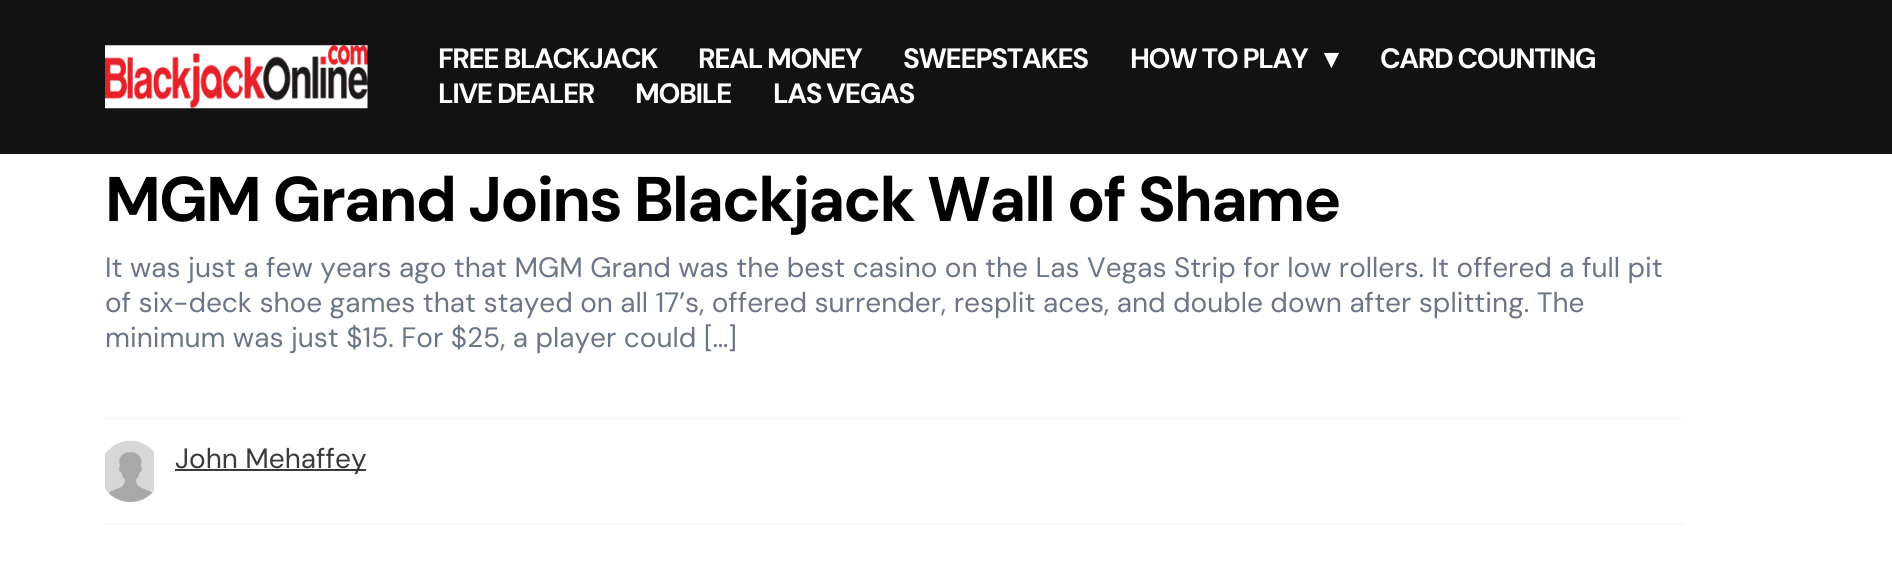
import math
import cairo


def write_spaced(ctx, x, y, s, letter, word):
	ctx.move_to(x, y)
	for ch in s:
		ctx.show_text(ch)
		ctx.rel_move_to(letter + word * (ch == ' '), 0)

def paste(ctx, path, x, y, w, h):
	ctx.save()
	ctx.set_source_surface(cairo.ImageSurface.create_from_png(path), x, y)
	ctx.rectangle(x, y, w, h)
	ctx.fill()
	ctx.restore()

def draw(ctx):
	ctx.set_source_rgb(1, 1, 1)
	ctx.paint()
	ctx.set_source_rgb(0.071, 0.071, 0.071)
	ctx.rectangle(0, 0, 1892, 154)
	ctx.fill()
	paste(ctx, 'media/1.png', 105, 45, 263, 64)
	ctx.select_font_face('DM Sans', cairo.FONT_SLANT_NORMAL, cairo.FONT_WEIGHT_BOLD)
	ctx.set_font_size(28)
	ctx.set_source_rgb(1, 1, 1)
	for x, y, s in [
		(438, 68, 'FREE BLACKJACK'),
		(698, 68, 'REAL MONEY'),
		(903, 68, 'SWEEPSTAKES'),
		(1130, 68, 'HOW TO PLAY'),
	]:
		write_spaced(ctx, x, y, s, -1.4, 0)
	ctx.select_font_face('DejaVu Sans', cairo.FONT_SLANT_NORMAL, cairo.FONT_WEIGHT_BOLD)
	ctx.move_to(1324, 68)
	ctx.show_text('▾')
	ctx.select_font_face('DM Sans', cairo.FONT_SLANT_NORMAL, cairo.FONT_WEIGHT_BOLD)
	for x, y, s in [
		(1380, 68, 'CARD COUNTING'),
		(438, 103, 'LIVE DEALER'),
		(635, 103, 'MOBILE'),
		(773, 103, 'LAS VEGAS'),
	]:
		write_spaced(ctx, x, y, s, -1.4, 0)
	ctx.set_font_size(63)
	ctx.set_source_rgb(0, 0, 0)
	write_spaced(ctx, 105, 221, 'MGM Grand Joins Blackjack Wall of Shame', -1.9, 0)
	ctx.select_font_face('DM Sans')
	ctx.set_font_size(28)
	ctx.set_source_rgb(0.42, 0.459, 0.533)
	for x, y, s in [
		(105, 277, 'It was just a few years ago that MGM Grand was the best casino on the Las Vegas Strip for low rollers. It offered a full pit'),
		(105, 312, 'of six-deck shoe games that stayed on all 17’s, offered surrender, resplit aces, and double down after splitting. The'),
		(105, 347, 'minimum was just $15. For $25, a player could […]'),
	]:
		ctx.move_to(x, y)
		ctx.show_text(s)
	ctx.set_source_rgb(0.969, 0.973, 0.992)
	ctx.rectangle(105, 418, 1579, 2)
	ctx.fill()
	ctx.rectangle(105, 523, 1579, 2)
	ctx.fill()
	paste(ctx, 'media/2.png', 105, 440, 49, 62)
	ctx.set_source_rgb(0.227, 0.227, 0.235)
	ctx.rectangle(175, 469, 191, 2)
	ctx.fill()
	ctx.move_to(175, 468)
	ctx.show_text('John Mehaffey')


surface = cairo.ImageSurface(cairo.FORMAT_RGB24, 1892, 582)
ctx = cairo.Context(surface)
options = cairo.FontOptions()
options.set_hint_metrics(cairo.HINT_METRICS_OFF)
options.set_hint_style(cairo.HINT_STYLE_NONE)
ctx.set_font_options(options)
ctx.set_miter_limit(4)
draw(ctx)
surface.write_to_png('image.png')
